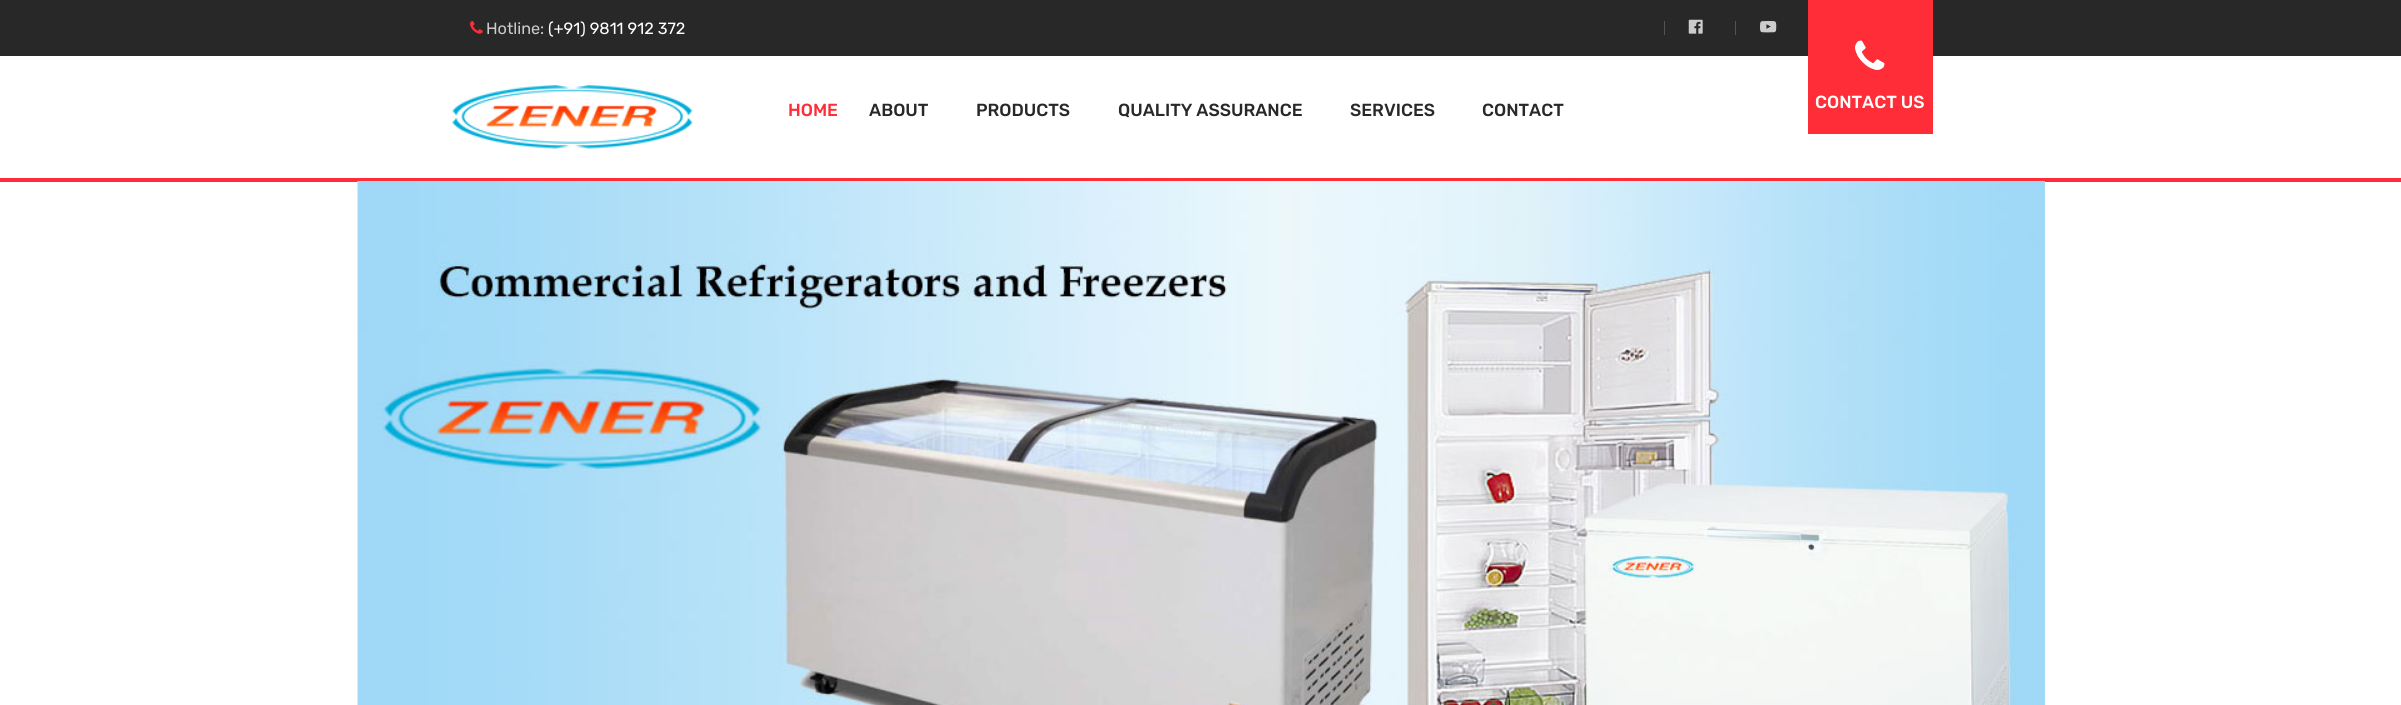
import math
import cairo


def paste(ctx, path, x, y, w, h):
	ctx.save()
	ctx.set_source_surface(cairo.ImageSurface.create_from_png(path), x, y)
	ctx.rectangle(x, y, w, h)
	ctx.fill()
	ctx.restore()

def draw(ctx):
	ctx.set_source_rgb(1, 1, 1)
	ctx.paint()
	ctx.set_source_rgb(1, 0.176, 0.216)
	ctx.rectangle(0, 178, 2401, 4)
	ctx.fill()
	ctx.set_source_rgb(0.157, 0.157, 0.157)
	ctx.rectangle(0, 0, 2401, 56)
	ctx.fill()
	paste(ctx, 'media/1.png', 470, 21, 13, 13)
	ctx.select_font_face('Rubik')
	ctx.set_font_size(16.25)
	ctx.set_source_rgb(0.8, 0.8, 0.8)
	ctx.move_to(486, 34)
	ctx.show_text('Hotline:')
	ctx.set_source_rgb(1, 1, 1)
	ctx.move_to(548, 34)
	ctx.show_text('(+91) 9811 912 372')
	ctx.set_source_rgb(0.325, 0.325, 0.325)
	ctx.rectangle(1664, 21, 1, 14)
	ctx.fill()
	paste(ctx, 'media/2.png', 1688, 19, 15, 15)
	ctx.rectangle(1735, 21, 1, 14)
	ctx.fill()
	paste(ctx, 'media/3.png', 1760, 21, 17, 12)
	paste(ctx, 'media/4.png', 452, 85, 241, 64)
	ctx.select_font_face('Rubik Medium')
	ctx.set_font_size(17.5)
	ctx.set_source_rgb(1, 0.176, 0.216)
	ctx.move_to(788, 116)
	ctx.show_text('HOME')
	ctx.set_source_rgb(0.157, 0.157, 0.157)
	for x, y, s in [
		(869, 116, 'ABOUT'),
		(976, 116, 'PRODUCTS'),
		(1118, 116, 'QUALITY ASSURANCE'),
		(1350, 116, 'SERVICES'),
		(1482, 116, 'CONTACT'),
	]:
		ctx.move_to(x, y)
		ctx.show_text(s)
	ctx.set_source_rgb(1, 0.176, 0.216)
	ctx.rectangle(1808, 0, 125, 134)
	ctx.fill()
	paste(ctx, 'media/5.png', 1855, 40, 30, 30)
	ctx.set_source_rgb(1, 1, 1)
	ctx.move_to(1815, 108)
	ctx.show_text('CONTACT US')
	paste(ctx, 'media/6.png', 357, 181, 1688, 524)


surface = cairo.ImageSurface(cairo.FORMAT_RGB24, 2401, 705)
ctx = cairo.Context(surface)
options = cairo.FontOptions()
options.set_hint_metrics(cairo.HINT_METRICS_OFF)
options.set_hint_style(cairo.HINT_STYLE_NONE)
ctx.set_font_options(options)
ctx.set_miter_limit(4)
draw(ctx)
surface.write_to_png('image.png')
